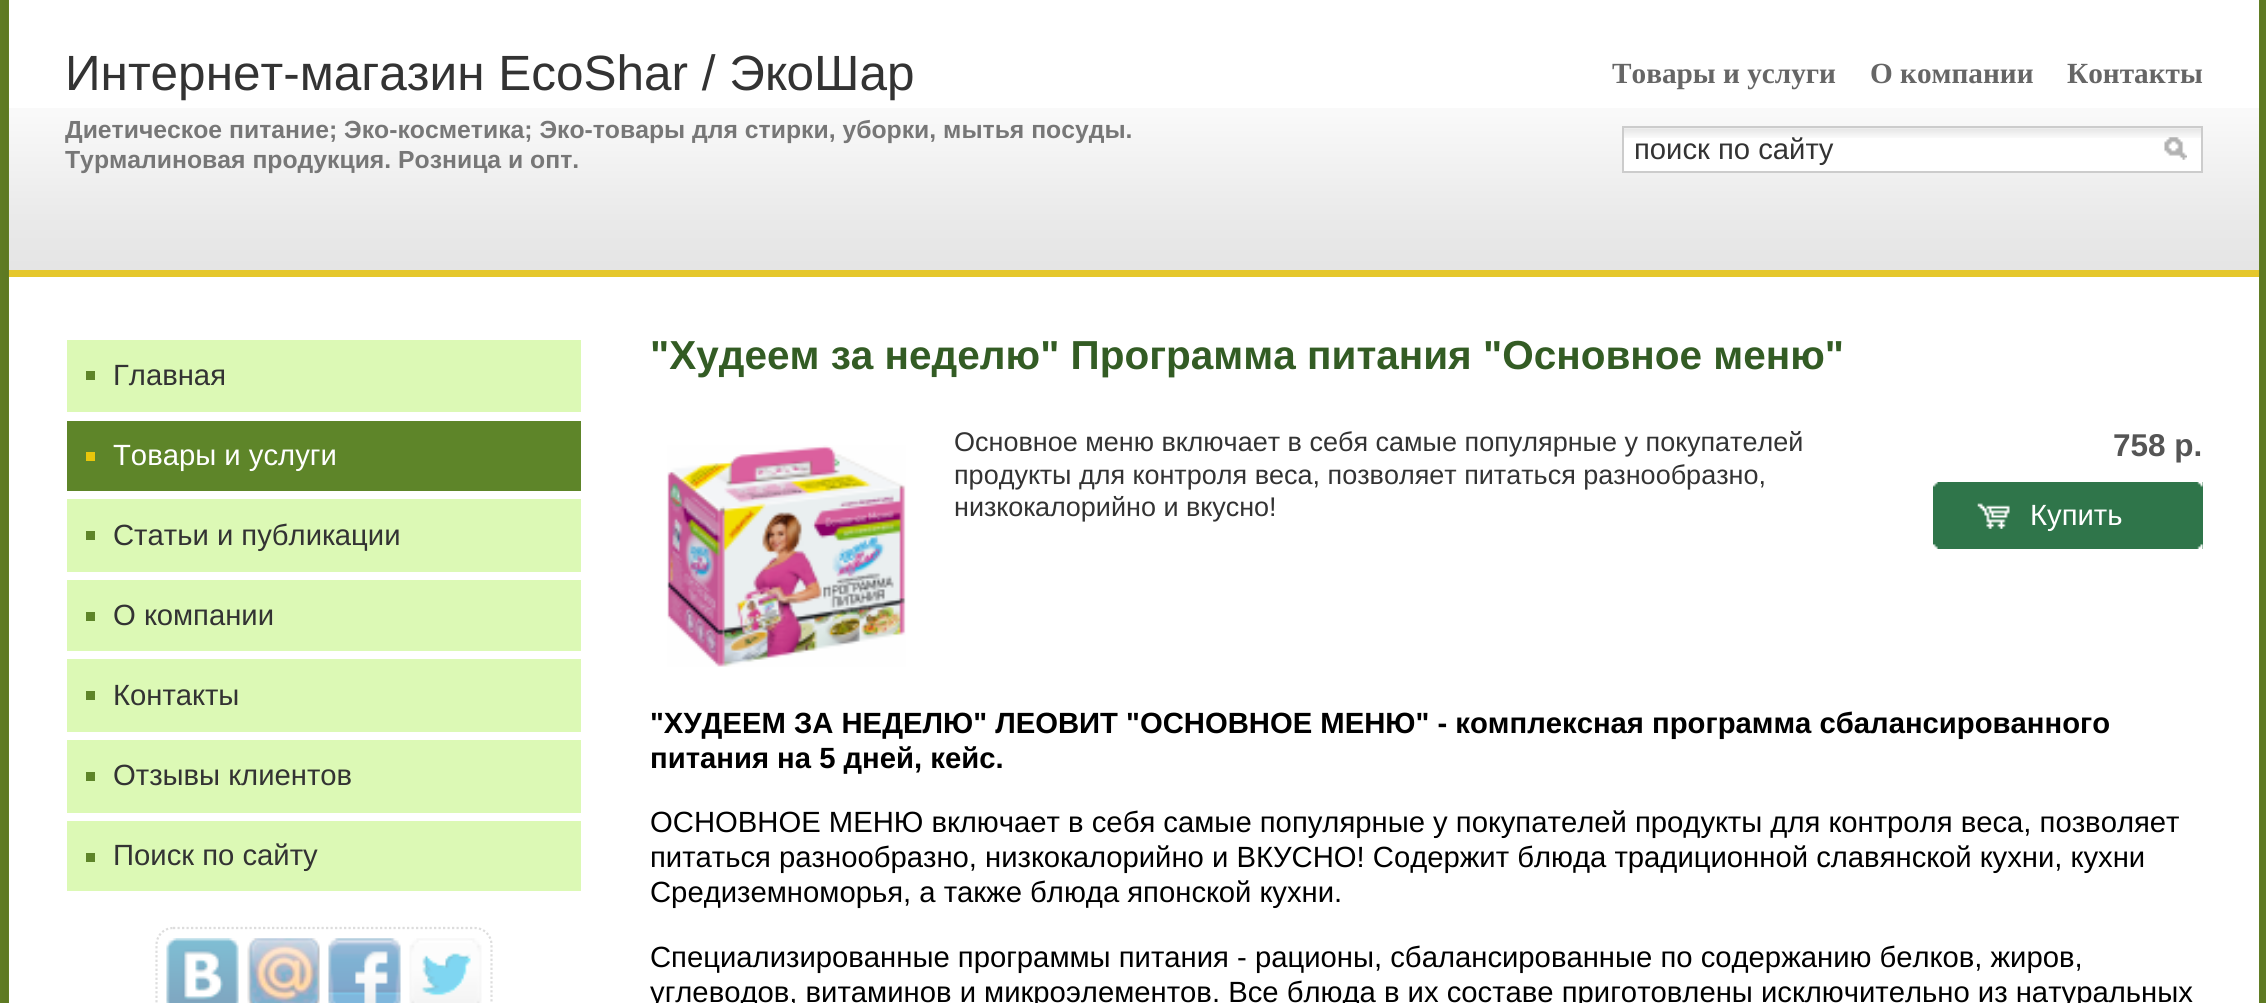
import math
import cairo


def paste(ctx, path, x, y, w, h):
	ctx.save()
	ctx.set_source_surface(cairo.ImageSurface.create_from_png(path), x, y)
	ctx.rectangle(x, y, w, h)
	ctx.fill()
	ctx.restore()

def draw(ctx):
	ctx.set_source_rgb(0.427, 0.553, 0.157)
	ctx.paint()
	paste(ctx, 'media/1.png', 0, 0, 2266, 1003)
	ctx.set_source_rgb(1, 1, 1)
	ctx.rectangle(9, 0, 2250, 1003)
	ctx.fill()
	paste(ctx, 'media/2.png', 9, 108, 2250, 162)
	ctx.set_source_rgb(0.898, 0.78, 0.173)
	ctx.rectangle(9, 270, 2250, 7)
	ctx.fill()
	ctx.select_font_face('Liberation Sans')
	ctx.set_font_size(49.5)
	ctx.set_source_rgb(0.2, 0.2, 0.2)
	ctx.move_to(65, 90)
	ctx.show_text('Интернет-магазин EcoShar / ЭкоШар')
	ctx.select_font_face('Liberation Sans', cairo.FONT_SLANT_NORMAL, cairo.FONT_WEIGHT_BOLD)
	ctx.set_font_size(24.75)
	ctx.set_source_rgb(0.467, 0.467, 0.467)
	ctx.move_to(65, 138)
	ctx.show_text('Диетическое питание; Эко-косметика; Эко-товары для стирки, уборки, мытья посуды.')
	ctx.move_to(65, 168)
	ctx.show_text('Турмалиновая продукция. Розница и опт.')
	ctx.select_font_face('Liberation Serif', cairo.FONT_SLANT_NORMAL, cairo.FONT_WEIGHT_BOLD)
	ctx.set_font_size(29.25)
	ctx.set_source_rgb(0.4, 0.4, 0.4)
	for x, y, s in [
		(1612, 83, 'Товары и услуги'),
		(1870, 83, 'О компании'),
		(2067, 83, 'Контакты'),
	]:
		ctx.move_to(x, y)
		ctx.show_text(s)
	ctx.set_source_rgb(1, 1, 1)
	ctx.rectangle(1624, 128, 577, 43)
	ctx.fill()
	paste(ctx, 'media/3.png', 1624, 128, 577, 10)
	ctx.rectangle(1623, 127, 579, 45)
	ctx.set_source_rgb(0.8, 0.8, 0.8)
	ctx.stroke()
	ctx.select_font_face('Liberation Sans')
	ctx.set_source_rgb(0.2, 0.2, 0.2)
	ctx.move_to(1634, 159)
	ctx.show_text('поиск по сайту')
	paste(ctx, 'media/4.png', 2164, 137, 23, 23)
	ctx.set_source_rgb(0.863, 0.973, 0.71)
	ctx.rectangle(67, 340, 514, 72)
	ctx.fill()
	ctx.set_source_rgb(0.369, 0.522, 0.161)
	ctx.rectangle(86, 371, 9, 9)
	ctx.fill()
	ctx.set_source_rgb(0.2, 0.2, 0.2)
	ctx.move_to(113, 385)
	ctx.show_text('Главная')
	ctx.set_source_rgb(0.369, 0.522, 0.161)
	ctx.rectangle(67, 421, 514, 70)
	ctx.fill()
	ctx.set_source_rgb(0.91, 0.776, 0.043)
	ctx.rectangle(86, 452, 9, 9)
	ctx.fill()
	ctx.set_source_rgb(1, 1, 1)
	ctx.move_to(113, 465)
	ctx.show_text('Товары и услуги')
	ctx.set_source_rgb(0.863, 0.973, 0.71)
	ctx.rectangle(67, 499, 514, 73)
	ctx.fill()
	ctx.set_source_rgb(0.369, 0.522, 0.161)
	ctx.rectangle(86, 531, 9, 9)
	ctx.fill()
	ctx.set_source_rgb(0.2, 0.2, 0.2)
	ctx.move_to(113, 545)
	ctx.show_text('Статьи и публикации')
	ctx.set_source_rgb(0.863, 0.973, 0.71)
	ctx.rectangle(67, 580, 514, 71)
	ctx.fill()
	ctx.set_source_rgb(0.369, 0.522, 0.161)
	ctx.rectangle(86, 612, 9, 9)
	ctx.fill()
	ctx.set_source_rgb(0.2, 0.2, 0.2)
	ctx.move_to(113, 625)
	ctx.show_text('О компании')
	ctx.set_source_rgb(0.863, 0.973, 0.71)
	ctx.rectangle(67, 659, 514, 73)
	ctx.fill()
	ctx.set_source_rgb(0.369, 0.522, 0.161)
	ctx.rectangle(86, 691, 9, 9)
	ctx.fill()
	ctx.set_source_rgb(0.2, 0.2, 0.2)
	ctx.move_to(113, 705)
	ctx.show_text('Контакты')
	ctx.set_source_rgb(0.863, 0.973, 0.71)
	ctx.rectangle(67, 740, 514, 73)
	ctx.fill()
	ctx.set_source_rgb(0.369, 0.522, 0.161)
	ctx.rectangle(86, 772, 9, 9)
	ctx.fill()
	ctx.set_source_rgb(0.2, 0.2, 0.2)
	ctx.move_to(113, 785)
	ctx.show_text('Отзывы клиентов')
	ctx.set_source_rgb(0.863, 0.973, 0.71)
	ctx.rectangle(67, 821, 514, 70)
	ctx.fill()
	ctx.set_source_rgb(0.369, 0.522, 0.161)
	ctx.rectangle(86, 853, 9, 9)
	ctx.fill()
	ctx.set_source_rgb(0.2, 0.2, 0.2)
	ctx.move_to(113, 865)
	ctx.show_text('Поиск по сайту')
	ctx.new_path()
	ctx.move_to(173, 928)
	ctx.line_to(475, 928)
	ctx.curve_to(484, 928, 491.5, 935.5, 491.5, 945)
	ctx.line_to(491.5, 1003.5)
	ctx.curve_to(491.5, 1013, 484, 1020.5, 475, 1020.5)
	ctx.line_to(173, 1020.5)
	ctx.curve_to(164, 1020.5, 156.5, 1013, 156.5, 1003.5)
	ctx.line_to(156.5, 945)
	ctx.curve_to(156.5, 935.5, 164, 928, 173, 928)
	ctx.close_path()
	ctx.set_source_rgb(0.867, 0.867, 0.867)
	ctx.set_line_width(2.2)
	ctx.set_dash([2.25, 2.25])
	ctx.stroke()
	paste(ctx, 'media/5.png', 166, 938, 73, 65)
	paste(ctx, 'media/6.png', 247, 938, 73, 65)
	paste(ctx, 'media/7.png', 328, 938, 73, 65)
	paste(ctx, 'media/8.png', 409, 938, 73, 65)
	ctx.select_font_face('Liberation Sans', cairo.FONT_SLANT_NORMAL, cairo.FONT_WEIGHT_BOLD)
	ctx.set_font_size(40.5)
	ctx.set_source_rgb(0.2, 0.361, 0.141)
	ctx.move_to(650, 369)
	ctx.show_text('"Худеем за неделю" Программа питания "Основное меню"')
	paste(ctx, 'media/9.png', 667, 445, 239, 222)
	ctx.select_font_face('Liberation Sans')
	ctx.set_font_size(27)
	ctx.set_source_rgb(0.2, 0.2, 0.2)
	for x, y, s in [
		(954, 451, 'Основное меню включает в себя самые популярные у покупателей'),
		(954, 484, 'продукты для контроля веса, позволяет питаться разнообразно,'),
		(954, 516, 'низкокалорийно и вкусно!'),
	]:
		ctx.move_to(x, y)
		ctx.show_text(s)
	ctx.select_font_face('Liberation Sans', cairo.FONT_SLANT_NORMAL, cairo.FONT_WEIGHT_BOLD)
	ctx.set_font_size(31.5)
	ctx.set_source_rgb(0.333, 0.333, 0.333)
	ctx.move_to(2113, 456)
	ctx.show_text('758 р.')
	ctx.set_source_rgb(0.184, 0.459, 0.29)
	ctx.rectangle(1933, 482, 270, 67)
	ctx.fill()
	paste(ctx, 'media/10.png', 2197, 482, 6, 67)
	paste(ctx, 'media/11.png', 1933, 482, 5, 67)
	paste(ctx, 'media/12.png', 1977, 503, 33, 26)
	ctx.select_font_face('Liberation Sans')
	ctx.set_font_size(29.25)
	ctx.set_source_rgb(1, 1, 1)
	ctx.move_to(2030, 525)
	ctx.show_text('Купить')
	ctx.select_font_face('Liberation Sans', cairo.FONT_SLANT_NORMAL, cairo.FONT_WEIGHT_BOLD)
	ctx.set_source_rgb(0, 0, 0)
	ctx.move_to(650, 733)
	ctx.show_text('"ХУДЕЕМ ЗА НЕДЕЛЮ" ЛЕОВИТ "ОСНОВНОЕ МЕНЮ" - комплексная программа сбалансированного')
	ctx.move_to(650, 768)
	ctx.show_text('питания на 5 дней, кейс.')
	ctx.select_font_face('Liberation Sans')
	for x, y, s in [
		(650, 832, 'ОСНОВНОЕ МЕНЮ включает в себя самые популярные у покупателей продукты для контроля веса, позволяет'),
		(650, 867, 'питаться разнообразно, низкокалорийно и ВКУСНО! Содержит блюда традиционной славянской кухни, кухни'),
		(650, 902, 'Средиземноморья, а также блюда японской кухни.'),
		(650, 967, 'Специализированные программы питания - рационы, сбалансированные по содержанию белков, жиров,'),
		(650, 1002, 'углеводов, витаминов и микроэлементов. Все блюда в их составе приготовлены исключительно из натуральных'),
	]:
		ctx.move_to(x, y)
		ctx.show_text(s)


surface = cairo.ImageSurface(cairo.FORMAT_RGB24, 2266, 1003)
ctx = cairo.Context(surface)
options = cairo.FontOptions()
options.set_hint_metrics(cairo.HINT_METRICS_OFF)
options.set_hint_style(cairo.HINT_STYLE_NONE)
ctx.set_font_options(options)
ctx.set_miter_limit(4)
draw(ctx)
surface.write_to_png('image.png')
